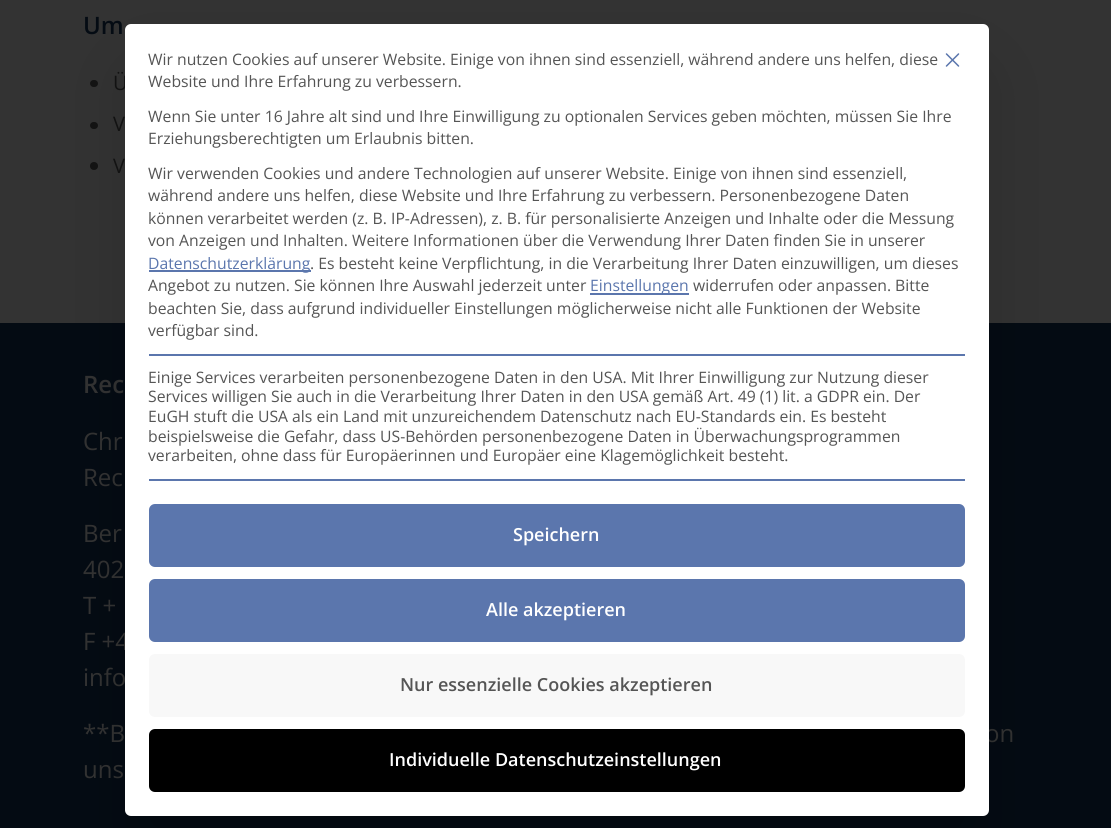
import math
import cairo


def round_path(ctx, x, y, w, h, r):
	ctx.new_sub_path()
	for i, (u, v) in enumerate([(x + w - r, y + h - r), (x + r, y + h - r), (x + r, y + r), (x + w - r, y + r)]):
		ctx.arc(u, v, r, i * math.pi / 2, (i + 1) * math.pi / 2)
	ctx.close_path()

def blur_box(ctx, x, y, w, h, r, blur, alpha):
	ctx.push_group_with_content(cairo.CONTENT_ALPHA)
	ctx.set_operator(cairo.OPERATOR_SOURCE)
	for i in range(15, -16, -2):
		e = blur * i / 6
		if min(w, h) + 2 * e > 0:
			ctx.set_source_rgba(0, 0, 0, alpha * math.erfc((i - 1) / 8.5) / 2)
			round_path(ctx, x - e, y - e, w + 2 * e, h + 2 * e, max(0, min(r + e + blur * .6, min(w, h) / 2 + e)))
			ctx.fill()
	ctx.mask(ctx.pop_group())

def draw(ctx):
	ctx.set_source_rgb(0.2, 0.2, 0.2)
	ctx.paint()
	ctx.select_font_face('Open Sans SemiBold')
	ctx.set_font_size(24)
	ctx.set_source_rgb(0.016, 0.043, 0.075)
	ctx.move_to(83, 34)
	ctx.show_text('Um')
	ctx.set_source_rgb(0.078, 0.078, 0.078)
	round_path(ctx, 90, 80, 8, 7, 3.5)
	ctx.fill()
	ctx.select_font_face('Open Sans')
	ctx.set_font_size(20)
	ctx.move_to(113, 90)
	ctx.show_text('Ü')
	round_path(ctx, 90, 122, 8, 7, 3.5)
	ctx.fill()
	ctx.move_to(113, 131)
	ctx.show_text('V')
	ctx.new_path()
	ctx.arc(94, 166, 4, 0, 2 * math.pi)
	ctx.fill()
	ctx.move_to(113, 173)
	ctx.show_text('V')
	ctx.set_source_rgb(0.016, 0.043, 0.075)
	ctx.rectangle(0, 323, 1111, 505)
	ctx.fill()
	ctx.select_font_face('Open Sans SemiBold')
	ctx.set_font_size(24)
	ctx.set_source_rgb(0.2, 0.2, 0.2)
	ctx.move_to(83, 393)
	ctx.show_text('Rec')
	ctx.select_font_face('Open Sans')
	for x, y, s in [
		(83, 450, 'Chr'),
		(83, 486, 'Rec'),
		(83, 542, 'Ber'),
		(83, 578, '402'),
		(83, 614, 'T +'),
		(83, 650, 'F +4'),
		(83, 686, 'info'),
		(83, 742, '**B'),
		(985, 742, 'on'),
		(83, 778, 'uns'),
	]:
		ctx.move_to(x, y)
		ctx.show_text(s)
	ctx.set_source_rgb(0, 0, 0)
	blur_box(ctx, 143, 80, 828, 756, 0, 37.5, 0.25)
	ctx.set_source_rgb(1, 1, 1)
	round_path(ctx, 125, 24, 864, 792, 6)
	ctx.fill()
	ctx.set_font_size(15.75)
	ctx.set_source_rgb(0.333, 0.333, 0.333)
	for x, y, s in [
		(148, 65, 'Wir nutzen Cookies auf unserer Website. Einige von ihnen sind essenziell, während andere uns helfen, diese'),
		(148, 87, 'Website und Ihre Erfahrung zu verbessern.'),
		(148, 122, 'Wenn Sie unter 16 Jahre alt sind und Ihre Einwilligung zu optionalen Services geben möchten, müssen Sie Ihre'),
		(148, 144, 'Erziehungsberechtigten um Erlaubnis bitten.'),
		(148, 179, 'Wir verwenden Cookies und andere Technologien auf unserer Website. Einige von ihnen sind essenziell,'),
		(148, 201, 'während andere uns helfen, diese Website und Ihre Erfahrung zu verbessern. Personenbezogene Daten'),
		(148, 224, 'können verarbeitet werden (z. B. IP-Adressen), z. B. für personalisierte Anzeigen und Inhalte oder die Messung'),
		(148, 246, 'von Anzeigen und Inhalten. Weitere Informationen über die Verwendung Ihrer Daten finden Sie in unserer'),
	]:
		ctx.move_to(x, y)
		ctx.show_text(s)
	ctx.set_source_rgb(0.357, 0.463, 0.678)
	ctx.rectangle(149, 270, 162, 2)
	ctx.fill()
	ctx.move_to(148, 269)
	ctx.show_text('Datenschutzerklärung')
	ctx.set_source_rgb(0.333, 0.333, 0.333)
	ctx.move_to(310, 269)
	ctx.show_text('. Es besteht keine Verpflichtung, in die Verarbeitung Ihrer Daten einzuwilligen, um dieses')
	ctx.move_to(148, 291)
	ctx.show_text('Angebot zu nutzen. Sie können Ihre Auswahl jederzeit unter')
	ctx.set_source_rgb(0.357, 0.463, 0.678)
	ctx.rectangle(590, 293, 99, 2)
	ctx.fill()
	ctx.move_to(590, 291)
	ctx.show_text('Einstellungen')
	ctx.set_source_rgb(0.333, 0.333, 0.333)
	for x, y, s in [
		(693, 291, 'widerrufen oder anpassen. Bitte'),
		(148, 314, 'beachten Sie, dass aufgrund individueller Einstellungen möglicherweise nicht alle Funktionen der Website'),
		(148, 336, 'verfügbar sind.'),
	]:
		ctx.move_to(x, y)
		ctx.show_text(s)
	ctx.set_source_rgb(0.357, 0.463, 0.678)
	ctx.rectangle(149, 354, 816, 2)
	ctx.fill()
	ctx.rectangle(149, 479, 816, 2)
	ctx.fill()
	ctx.set_source_rgb(0.333, 0.333, 0.333)
	for x, y, s in [
		(148, 383, 'Einige Services verarbeiten personenbezogene Daten in den USA. Mit Ihrer Einwilligung zur Nutzung dieser'),
		(148, 402, 'Services willigen Sie auch in die Verarbeitung Ihrer Daten in den USA gemäß Art. 49 (1) lit. a GDPR ein. Der'),
		(148, 422, 'EuGH stuft die USA als ein Land mit unzureichendem Datenschutz nach EU-Standards ein. Es besteht'),
		(148, 442, 'beispielsweise die Gefahr, dass US-Behörden personenbezogene Daten in Überwachungsprogrammen'),
		(148, 461, 'verarbeiten, ohne dass für Europäerinnen und Europäer eine Klagemöglichkeit besteht.'),
	]:
		ctx.move_to(x, y)
		ctx.show_text(s)
	ctx.set_source_rgb(0.357, 0.463, 0.678)
	round_path(ctx, 149, 504, 816, 63, 6)
	ctx.fill()
	ctx.select_font_face('Open Sans SemiBold')
	ctx.set_font_size(18)
	ctx.set_source_rgb(1, 1, 1)
	ctx.move_to(513, 541)
	ctx.show_text('Speichern')
	ctx.set_source_rgb(0.357, 0.463, 0.678)
	round_path(ctx, 149, 579, 816, 63, 6)
	ctx.fill()
	ctx.set_source_rgb(1, 1, 1)
	ctx.move_to(486, 616)
	ctx.show_text('Alle akzeptieren')
	ctx.set_source_rgb(0.969, 0.969, 0.969)
	round_path(ctx, 149, 654, 816, 63, 6)
	ctx.fill()
	ctx.set_source_rgb(0.333, 0.333, 0.333)
	ctx.move_to(400, 691)
	ctx.show_text('Nur essenzielle Cookies akzeptieren')
	ctx.set_source_rgb(0, 0, 0)
	round_path(ctx, 149, 729, 816, 63, 6)
	ctx.fill()
	ctx.set_source_rgb(1, 1, 1)
	ctx.move_to(389, 766)
	ctx.show_text('Individuelle Datenschutzeinstellungen')
	ctx.new_path()
	ctx.move_to(946.5, 66)
	ctx.line_to(958.5, 54)
	ctx.move_to(946.5, 54)
	ctx.line_to(958.5, 66)
	ctx.set_source_rgb(0.357, 0.463, 0.678)
	ctx.set_line_width(1.5)
	ctx.set_line_cap(cairo.LINE_CAP_ROUND)
	ctx.set_line_join(cairo.LINE_JOIN_ROUND)
	ctx.stroke()


surface = cairo.ImageSurface(cairo.FORMAT_RGB24, 1111, 828)
ctx = cairo.Context(surface)
options = cairo.FontOptions()
options.set_hint_metrics(cairo.HINT_METRICS_OFF)
options.set_hint_style(cairo.HINT_STYLE_NONE)
ctx.set_font_options(options)
ctx.set_miter_limit(4)
draw(ctx)
surface.write_to_png('image.png')
